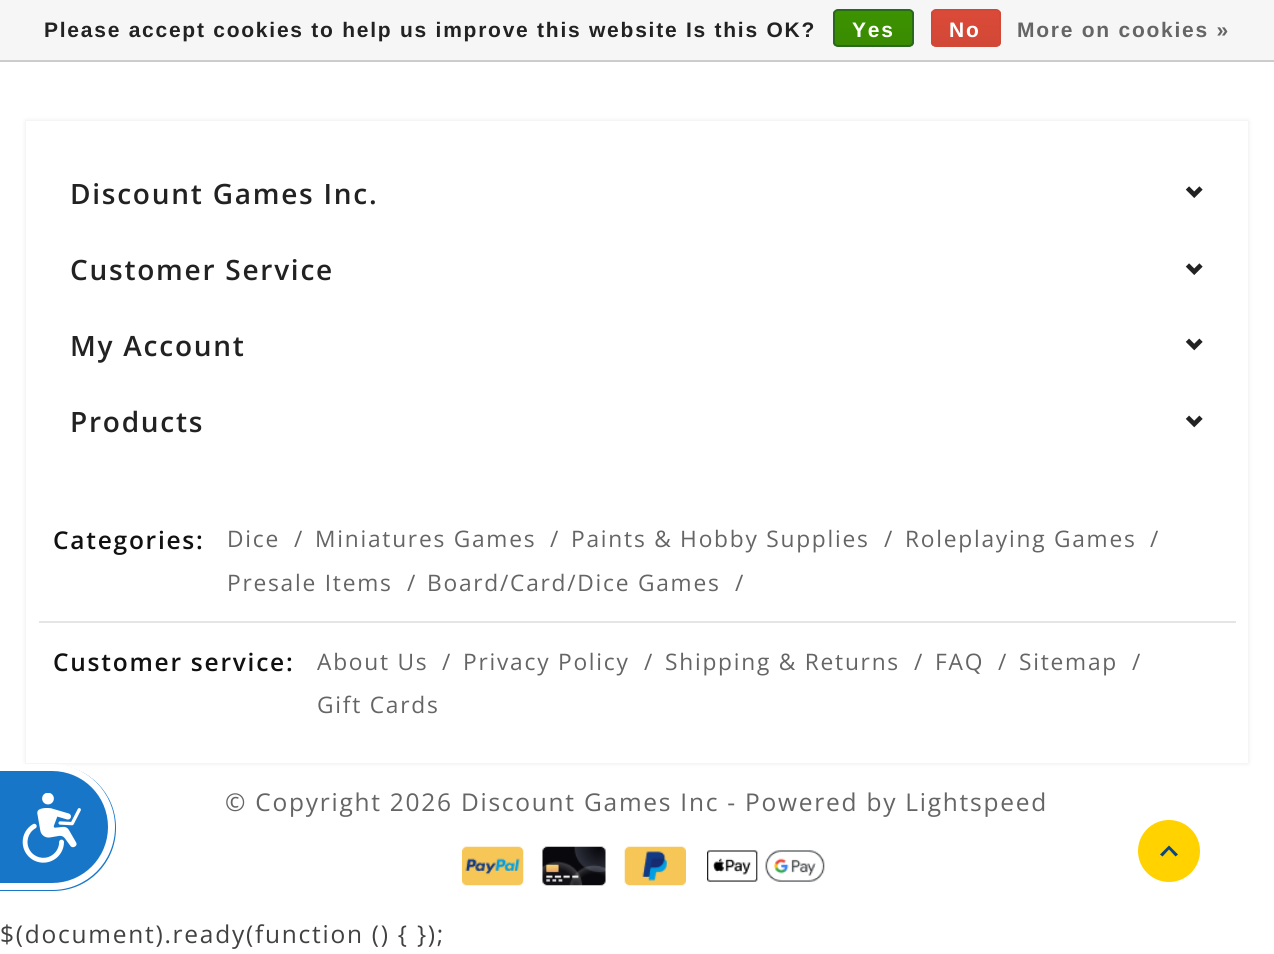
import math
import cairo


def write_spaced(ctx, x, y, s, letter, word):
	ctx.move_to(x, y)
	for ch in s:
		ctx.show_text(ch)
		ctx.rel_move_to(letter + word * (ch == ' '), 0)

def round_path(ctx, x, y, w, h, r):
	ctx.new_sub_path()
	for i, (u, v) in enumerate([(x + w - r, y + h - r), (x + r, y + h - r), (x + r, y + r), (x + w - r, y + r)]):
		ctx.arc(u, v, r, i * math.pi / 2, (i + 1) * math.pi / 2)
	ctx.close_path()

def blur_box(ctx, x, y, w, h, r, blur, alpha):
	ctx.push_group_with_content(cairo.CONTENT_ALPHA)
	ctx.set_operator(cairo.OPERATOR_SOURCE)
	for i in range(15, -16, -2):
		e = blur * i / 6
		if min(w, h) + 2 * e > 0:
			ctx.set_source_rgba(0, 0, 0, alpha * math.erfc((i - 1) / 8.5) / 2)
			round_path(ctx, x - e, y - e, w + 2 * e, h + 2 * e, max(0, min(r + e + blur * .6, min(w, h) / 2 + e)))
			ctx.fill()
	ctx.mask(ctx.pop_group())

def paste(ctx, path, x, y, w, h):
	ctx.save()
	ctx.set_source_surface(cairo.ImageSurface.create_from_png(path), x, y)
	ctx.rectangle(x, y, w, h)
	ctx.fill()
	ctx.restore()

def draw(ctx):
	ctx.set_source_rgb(1, 1, 1)
	ctx.paint()
	ctx.set_source_rgb(0.961, 0.961, 0.961)
	ctx.rectangle(0, 0, 1274, 60)
	ctx.fill()
	ctx.set_source_rgb(0.8, 0.8, 0.8)
	ctx.rectangle(0, 60, 1274, 2)
	ctx.fill()
	ctx.select_font_face('Liberation Sans', cairo.FONT_SLANT_NORMAL, cairo.FONT_WEIGHT_BOLD)
	ctx.set_font_size(21)
	ctx.set_source_rgb(0.133, 0.133, 0.133)
	write_spaced(ctx, 44, 37, 'Please accept cookies to help us improve this website Is this OK?', 1.75, 0)
	ctx.save()
	round_path(ctx, 833, 9, 81, 38, 5)
	ctx.clip()
	gradient = cairo.LinearGradient(873, 10, 873, 46)
	gradient.add_color_stop_rgba(0, 0.235, 0.576, 0, 1)
	gradient.add_color_stop_rgba(1, 0.224, 0.541, 0, 1)
	ctx.set_source(gradient)
	ctx.rectangle(833, 11, 81, 35)
	ctx.fill()
	ctx.restore()
	round_path(ctx, 834, 10, 79, 36, 4)
	ctx.set_source_rgb(0.161, 0.412, 0.114)
	ctx.stroke()
	ctx.set_source_rgb(1, 1, 1)
	write_spaced(ctx, 852, 37, 'Yes', 1.75, 0)
	ctx.save()
	round_path(ctx, 931, 9, 70, 38, 5)
	ctx.clip()
	gradient = cairo.LinearGradient(966, 10, 966, 46)
	gradient.add_color_stop_rgba(0, 0.863, 0.29, 0.22, 1)
	gradient.add_color_stop_rgba(1, 0.82, 0.282, 0.212, 1)
	ctx.set_source(gradient)
	ctx.rectangle(931, 11, 70, 35)
	ctx.fill()
	ctx.restore()
	round_path(ctx, 932, 10, 68, 36, 4)
	ctx.set_source_rgb(0.82, 0.282, 0.212)
	ctx.stroke()
	ctx.set_source_rgb(1, 1, 1)
	write_spaced(ctx, 949, 37, 'No', 1.75, 0)
	ctx.set_source_rgb(0.396, 0.396, 0.396)
	write_spaced(ctx, 1017, 37, 'More on cookies »', 1.75, 0)
	ctx.set_source_rgb(0, 0, 0)
	blur_box(ctx, 26, 121, 1222, 642, 0, 2.5, 0.1)
	ctx.set_source_rgb(1, 1, 1)
	ctx.rectangle(26, 121, 1222, 642)
	ctx.fill()
	ctx.select_font_face('Open Sans SemiBold')
	ctx.set_font_size(28)
	ctx.set_source_rgb(0.133, 0.133, 0.133)
	write_spaced(ctx, 70, 204, 'Discount Games Inc.', 1.75, 0)
	paste(ctx, 'media/1.png', 1185, 186, 18, 12)
	write_spaced(ctx, 70, 280, 'Customer Service', 1.75, 0)
	paste(ctx, 'media/1.png', 1185, 263, 18, 12)
	write_spaced(ctx, 70, 356, 'My Account', 1.75, 0)
	paste(ctx, 'media/2.png', 1185, 338, 18, 13)
	write_spaced(ctx, 70, 432, 'Products', 1.75, 0)
	paste(ctx, 'media/2.png', 1185, 415, 18, 13)
	ctx.set_font_size(24.5)
	ctx.set_source_rgb(0.067, 0.067, 0.067)
	write_spaced(ctx, 53, 549, 'Categories:', 1.75, 0)
	ctx.select_font_face('Open Sans')
	ctx.set_font_size(22.75)
	ctx.set_source_rgb(0.396, 0.396, 0.396)
	for x, y, s in [
		(227, 547, 'Dice'),
		(294, 547, '/'),
		(315, 547, 'Miniatures Games'),
		(550, 547, '/'),
		(571, 547, 'Paints & Hobby Supplies'),
		(884, 547, '/'),
		(905, 547, 'Roleplaying Games'),
		(1150, 547, '/'),
		(227, 591, 'Presale Items'),
		(407, 591, '/'),
		(427, 591, 'Board/Card/Dice Games'),
		(735, 591, '/'),
	]:
		write_spaced(ctx, x, y, s, 1.75, 0)
	ctx.set_source_rgb(0.898, 0.898, 0.898)
	ctx.rectangle(39, 621, 1197, 2)
	ctx.fill()
	ctx.select_font_face('Open Sans SemiBold')
	ctx.set_font_size(24.5)
	ctx.set_source_rgb(0.067, 0.067, 0.067)
	write_spaced(ctx, 53, 671, 'Customer service:', 1.75, 0)
	ctx.select_font_face('Open Sans')
	ctx.set_font_size(22.75)
	ctx.set_source_rgb(0.396, 0.396, 0.396)
	for x, y, s in [
		(317, 670, 'About Us'),
		(442, 670, '/'),
		(463, 670, 'Privacy Policy'),
		(644, 670, '/'),
		(665, 670, 'Shipping & Returns'),
		(914, 670, '/'),
		(935, 670, 'FAQ'),
		(998, 670, '/'),
		(1019, 670, 'Sitemap'),
		(1132, 670, '/'),
		(317, 713, 'Gift Cards'),
	]:
		write_spaced(ctx, x, y, s, 1.75, 0)
	ctx.set_font_size(24.5)
	write_spaced(ctx, 225, 811, '© Copyright 2026 Discount Games Inc - Powered by Lightspeed', 1.75, 0)
	paste(ctx, 'media/3.png', 462, 846, 62, 40)
	paste(ctx, 'media/4.png', 542, 846, 64, 40)
	paste(ctx, 'media/5.png', 624, 846, 62, 40)
	paste(ctx, 'media/6.png', 707, 850, 118, 32)
	ctx.set_source_rgb(1, 0.824, 0)
	ctx.arc(1169, 851, 33, 0, 2 * math.pi)
	ctx.fill_preserve()
	ctx.set_source_rgb(1, 1, 1)
	ctx.set_line_width(4)
	ctx.stroke()
	ctx.set_source_rgb(0.051, 0.278, 0.51)
	ctx.new_path()
	ctx.move_to(1162.5, 856.5)
	ctx.line_to(1169, 849.5)
	ctx.line_to(1175.5, 856.5)
	ctx.line_to(1178, 854.5)
	ctx.line_to(1169, 845.5)
	ctx.line_to(1160, 854.5)
	ctx.close_path()
	ctx.fill()
	ctx.set_source_rgb(0.094, 0.463, 0.788)
	ctx.new_path()
	ctx.move_to(0, 765)
	ctx.line_to(53, 765)
	ctx.curve_to(88, 765, 116, 793, 116, 828)
	ctx.curve_to(116, 863, 88, 891, 53, 891)
	ctx.line_to(0, 891)
	ctx.close_path()
	ctx.fill()
	ctx.set_source_rgb(1, 1, 1)
	ctx.set_fill_rule(cairo.FILL_RULE_EVEN_ODD)
	ctx.new_path()
	ctx.move_to(0, 764)
	ctx.line_to(52, 764)
	ctx.curve_to(87, 764, 115, 793, 115, 827)
	ctx.curve_to(115, 862, 87, 890, 52, 890)
	ctx.line_to(0, 890)
	ctx.close_path()
	ctx.move_to(0, 771)
	ctx.line_to(52, 771)
	ctx.curve_to(83, 771, 108, 796, 108, 827)
	ctx.curve_to(108, 858, 83, 883, 52, 883)
	ctx.line_to(0, 883)
	ctx.close_path()
	ctx.fill()
	paste(ctx, 'media/7.png', 22, 793, 59, 70)
	ctx.set_source_rgb(0.255, 0.255, 0.255)
	write_spaced(ctx, 0, 943, '$(document).ready(function () { });', 1.75, 0)


surface = cairo.ImageSurface(cairo.FORMAT_RGB24, 1274, 954)
ctx = cairo.Context(surface)
options = cairo.FontOptions()
options.set_hint_metrics(cairo.HINT_METRICS_OFF)
options.set_hint_style(cairo.HINT_STYLE_NONE)
ctx.set_font_options(options)
ctx.set_miter_limit(4)
draw(ctx)
surface.write_to_png('image.png')
